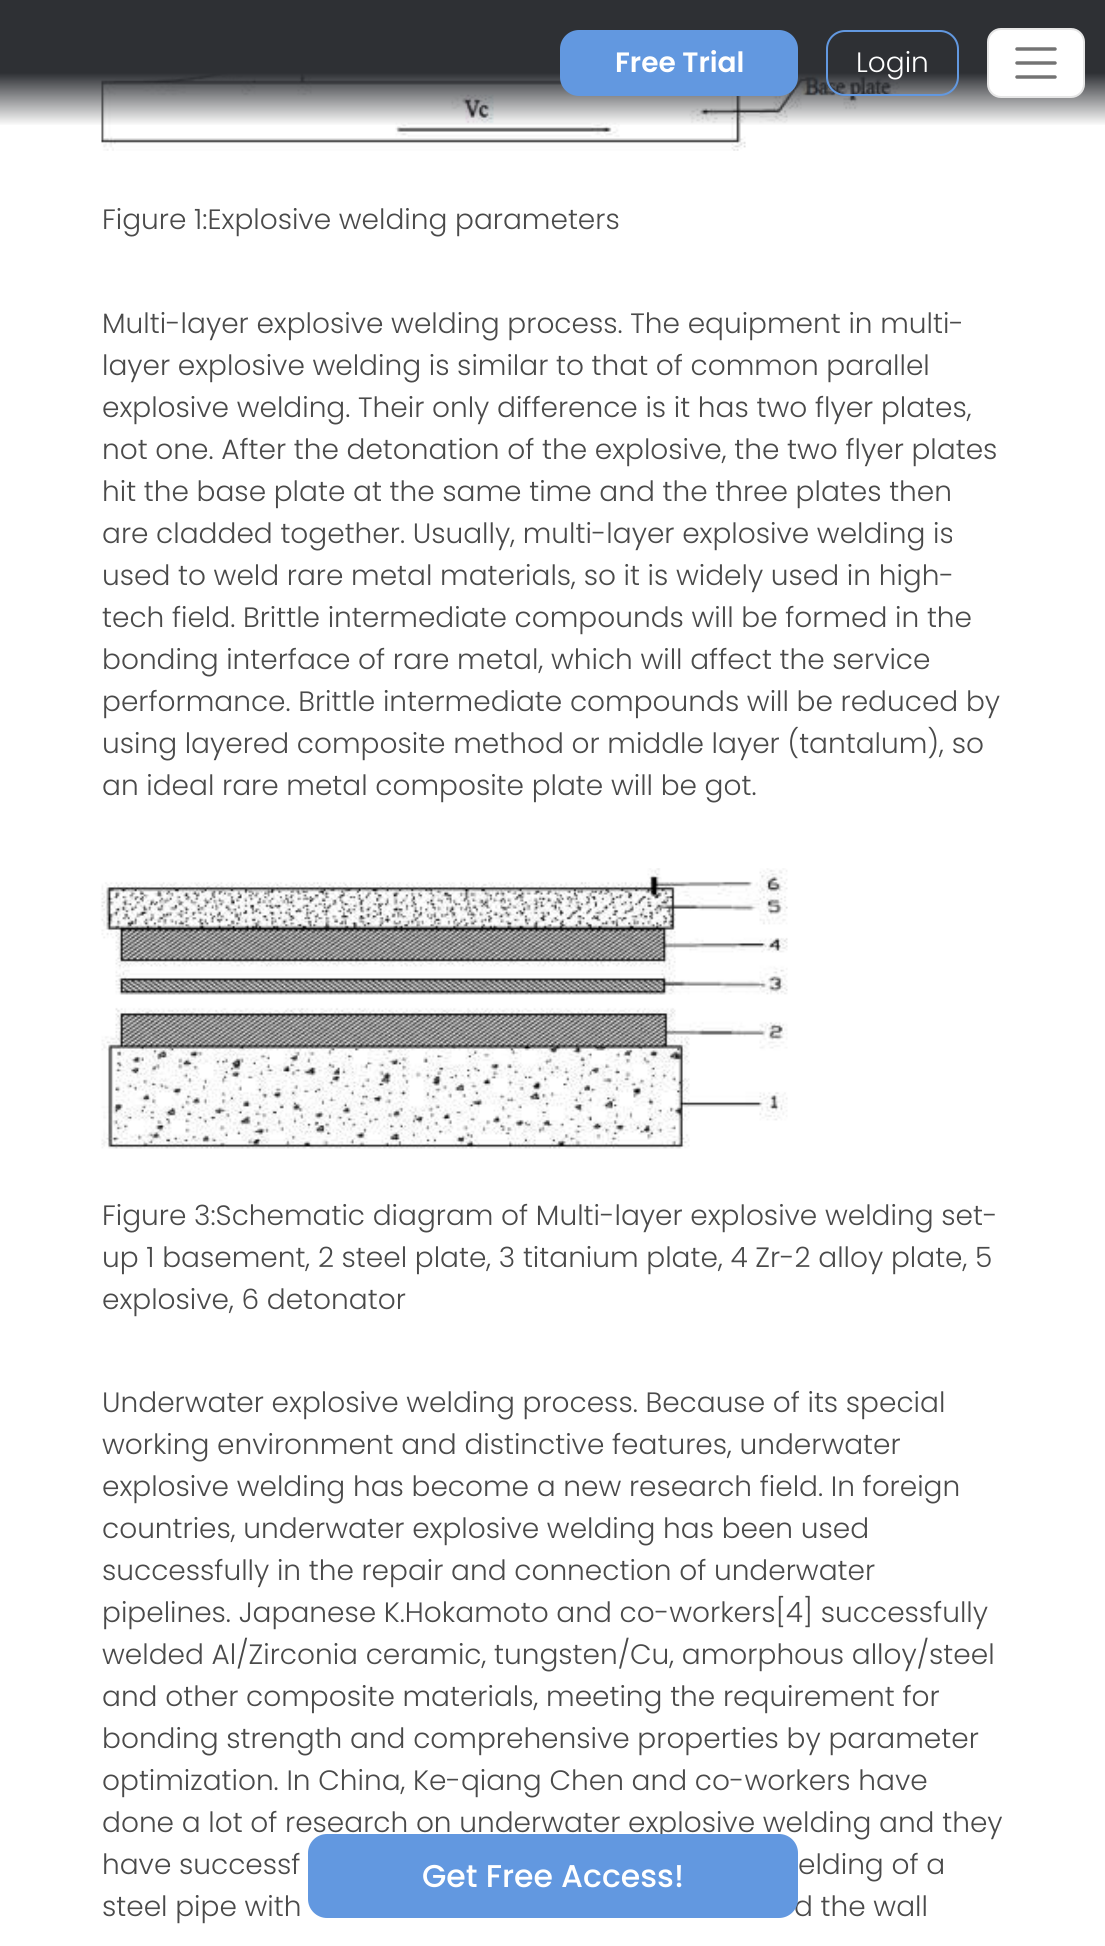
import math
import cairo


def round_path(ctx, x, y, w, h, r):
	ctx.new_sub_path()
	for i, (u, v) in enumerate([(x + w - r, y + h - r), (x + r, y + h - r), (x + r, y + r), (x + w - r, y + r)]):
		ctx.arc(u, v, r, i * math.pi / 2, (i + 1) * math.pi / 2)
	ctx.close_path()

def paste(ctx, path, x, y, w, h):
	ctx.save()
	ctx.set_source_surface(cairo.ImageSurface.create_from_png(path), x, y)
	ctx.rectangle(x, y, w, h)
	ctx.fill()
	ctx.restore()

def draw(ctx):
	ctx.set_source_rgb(1, 1, 1)
	ctx.paint()
	paste(ctx, 'media/1.png', 101, 73, 799, 78)
	gradient = cairo.LinearGradient(553, 126, 553, 0)
	gradient.add_color_stop_rgba(0, 0.18, 0.188, 0.204, 0)
	gradient.add_color_stop_rgba(0.42, 0.18, 0.188, 0.204, 1)
	gradient.add_color_stop_rgba(1, 0.18, 0.188, 0.204, 1)
	ctx.set_source(gradient)
	ctx.rectangle(0, 0, 1105, 125)
	ctx.fill()
	ctx.set_source_rgb(0.384, 0.596, 0.878)
	round_path(ctx, 561, 31, 236, 64, 18)
	ctx.fill_preserve()
	ctx.stroke()
	ctx.select_font_face('Poppins SemiBold')
	ctx.set_font_size(28)
	ctx.set_source_rgb(1, 1, 1)
	ctx.move_to(615, 72)
	ctx.show_text('Free Trial')
	round_path(ctx, 827, 31, 131, 64, 18)
	ctx.set_source_rgb(0.384, 0.596, 0.878)
	ctx.stroke()
	ctx.select_font_face('Poppins Light')
	ctx.set_source_rgb(1, 1, 1)
	ctx.move_to(856, 72)
	ctx.show_text('Login')
	round_path(ctx, 987, 28, 98, 70, 14)
	ctx.fill()
	round_path(ctx, 988, 29, 96, 68, 13)
	ctx.set_source_rgba(0, 0, 0, 0.1)
	ctx.stroke()
	ctx.new_path()
	ctx.move_to(1017, 49)
	ctx.line_to(1055, 49)
	ctx.move_to(1017, 63)
	ctx.line_to(1055, 63)
	ctx.move_to(1017, 77)
	ctx.line_to(1055, 77)
	ctx.set_source_rgb(0.451, 0.451, 0.451)
	ctx.set_line_width(3.5)
	ctx.set_line_cap(cairo.LINE_CAP_ROUND)
	ctx.stroke()
	ctx.set_source_rgb(0.29, 0.29, 0.29)
	for x, y, s in [
		(102, 229, 'Figure 1:Explosive welding parameters'),
		(102, 333, 'Multi-layer explosive welding process. The equipment in multi-'),
		(102, 375, 'layer explosive welding is similar to that of common parallel'),
		(102, 417, 'explosive welding. Their only difference is it has two flyer plates,'),
		(102, 459, 'not one. After the detonation of the explosive, the two flyer plates'),
		(102, 501, 'hit the base plate at the same time and the three plates then'),
		(102, 543, 'are cladded together. Usually, multi-layer explosive welding is'),
		(102, 585, 'used to weld rare metal materials, so it is widely used in high-'),
		(102, 627, 'tech field. Brittle intermediate compounds will be formed in the'),
		(102, 669, 'bonding interface of rare metal, which will affect the service'),
		(102, 711, 'performance. Brittle intermediate compounds will be reduced by'),
		(102, 753, 'using layered composite method or middle layer (tantalum), so'),
		(102, 795, 'an ideal rare metal composite plate will be got.'),
	]:
		ctx.move_to(x, y)
		ctx.show_text(s)
	paste(ctx, 'media/2.png', 101, 868, 687, 281)
	for x, y, s in [
		(102, 1225, 'Figure 3:Schematic diagram of Multi-layer explosive welding set-'),
		(102, 1267, 'up 1 basement, 2 steel plate, 3 titanium plate, 4 Zr-2 alloy plate, 5'),
		(102, 1309, 'explosive, 6 detonator'),
		(102, 1412, 'Underwater explosive welding process. Because of its special'),
		(102, 1454, 'working environment and distinctive features, underwater'),
		(102, 1496, 'explosive welding has become a new research field. In foreign'),
		(102, 1538, 'countries, underwater explosive welding has been used'),
		(102, 1580, 'successfully in the repair and connection of underwater'),
		(102, 1622, 'pipelines. Japanese K.Hokamoto and co-workers[4] successfully'),
		(102, 1664, 'welded Al/Zirconia ceramic, tungsten/Cu, amorphous alloy/steel'),
		(102, 1706, 'and other composite materials, meeting the requirement for'),
		(102, 1748, 'bonding strength and comprehensive properties by parameter'),
		(102, 1790, 'optimization. In China, Ke-qiang Chen and co-workers have'),
		(102, 1832, 'done a lot of research on underwater explosive welding and they'),
		(102, 1874, 'have successf'),
		(798, 1874, 'elding of a'),
		(102, 1916, 'steel pipe with'),
		(794, 1916, 'd the wall'),
	]:
		ctx.move_to(x, y)
		ctx.show_text(s)
	ctx.set_source_rgb(0.384, 0.596, 0.878)
	round_path(ctx, 309, 1835, 488, 82, 18)
	ctx.fill_preserve()
	ctx.set_line_width(2)
	ctx.set_line_cap(cairo.LINE_CAP_BUTT)
	ctx.stroke()
	ctx.select_font_face('Poppins Medium')
	ctx.set_font_size(31.5)
	ctx.set_source_rgb(1, 1, 1)
	ctx.move_to(422, 1887)
	ctx.show_text('Get Free Access!')


surface = cairo.ImageSurface(cairo.FORMAT_RGB24, 1105, 1946)
ctx = cairo.Context(surface)
options = cairo.FontOptions()
options.set_hint_metrics(cairo.HINT_METRICS_OFF)
options.set_hint_style(cairo.HINT_STYLE_NONE)
ctx.set_font_options(options)
ctx.set_miter_limit(4)
draw(ctx)
surface.write_to_png('image.png')
